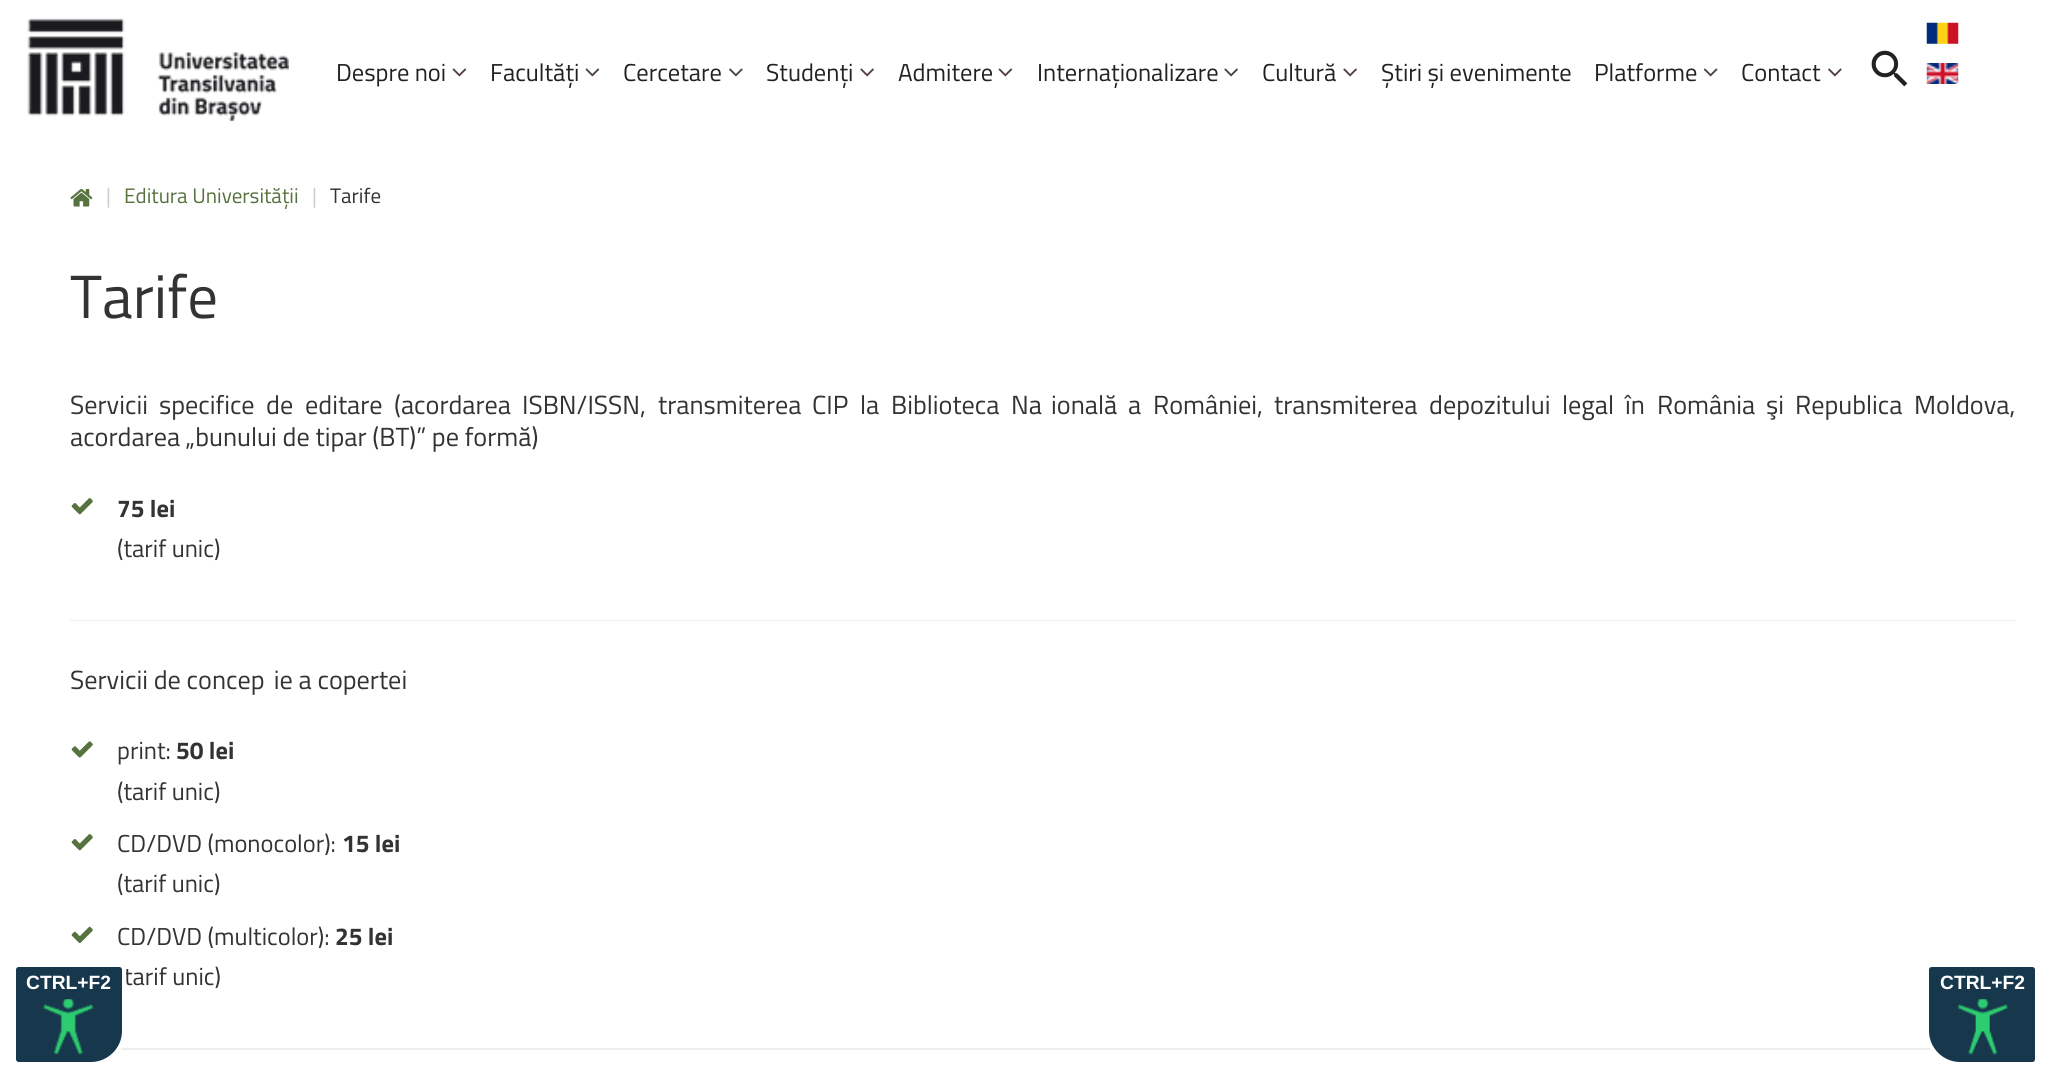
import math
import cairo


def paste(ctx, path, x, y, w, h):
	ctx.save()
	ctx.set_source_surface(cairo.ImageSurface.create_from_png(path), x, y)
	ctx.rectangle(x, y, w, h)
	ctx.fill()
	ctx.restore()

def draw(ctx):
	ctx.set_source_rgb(1, 1, 1)
	ctx.paint()
	ctx.select_font_face('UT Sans')
	ctx.set_font_size(24.5)
	ctx.set_source_rgb(0.2, 0.2, 0.2)
	ctx.move_to(124, 985)
	ctx.show_text('tarif unic)')
	ctx.set_source_rgb(0.933, 0.933, 0.933)
	ctx.rectangle(120, 1048, 1811, 2)
	ctx.fill()
	ctx.set_source_rgb(0.09, 0.22, 0.298)
	ctx.new_path()
	ctx.move_to(19, 965)
	ctx.line_to(119, 965)
	ctx.curve_to(122, 965, 124, 967, 124, 970)
	ctx.line_to(124, 1031)
	ctx.curve_to(124, 1049, 109, 1064, 91, 1064)
	ctx.line_to(19, 1064)
	ctx.curve_to(16, 1064, 14, 1062, 14, 1059)
	ctx.line_to(14, 970)
	ctx.curve_to(14, 967, 16, 965, 19, 965)
	ctx.close_path()
	ctx.fill_preserve()
	ctx.set_source_rgb(1, 1, 1)
	ctx.set_line_width(4)
	ctx.stroke()
	ctx.select_font_face('Liberation Sans', cairo.FONT_SLANT_NORMAL, cairo.FONT_WEIGHT_BOLD)
	ctx.set_font_size(19.25)
	ctx.move_to(26, 989)
	ctx.show_text('CTRL+F2')
	paste(ctx, 'media/1.png', 42, 999, 52, 56)
	paste(ctx, 'media/2.png', 27, 18, 262, 103)
	ctx.select_font_face('UT Sans')
	ctx.set_font_size(24.5)
	ctx.set_source_rgb(0.133, 0.133, 0.133)
	ctx.move_to(336, 81)
	ctx.show_text('Despre noi')
	paste(ctx, 'media/3.png', 452, 68, 15, 9)
	ctx.move_to(490, 81)
	ctx.show_text('Facultăți')
	paste(ctx, 'media/3.png', 585, 68, 15, 9)
	ctx.move_to(623, 81)
	ctx.show_text('Cercetare')
	paste(ctx, 'media/4.png', 729, 68, 14, 9)
	ctx.move_to(766, 81)
	ctx.show_text('Studenți')
	paste(ctx, 'media/5.png', 860, 68, 14, 9)
	ctx.move_to(898, 81)
	ctx.show_text('Admitere')
	paste(ctx, 'media/3.png', 998, 68, 15, 9)
	ctx.move_to(1037, 81)
	ctx.show_text('Internaționalizare')
	paste(ctx, 'media/5.png', 1224, 68, 14, 9)
	ctx.move_to(1262, 81)
	ctx.show_text('Cultură')
	paste(ctx, 'media/5.png', 1343, 68, 14, 9)
	ctx.move_to(1381, 81)
	ctx.show_text('Știri și evenimente')
	ctx.move_to(1594, 81)
	ctx.show_text('Platforme')
	paste(ctx, 'media/6.png', 1703, 68, 15, 9)
	ctx.move_to(1741, 81)
	ctx.show_text('Contact')
	paste(ctx, 'media/4.png', 1828, 68, 14, 9)
	paste(ctx, 'media/7.png', 1871, 50, 37, 37)
	paste(ctx, 'media/8.png', 1926, 22, 33, 22)
	paste(ctx, 'media/9.png', 1926, 63, 33, 21)
	paste(ctx, 'media/10.png', 70, 189, 23, 18)
	ctx.set_font_size(21)
	ctx.set_source_rgb(0.8, 0.8, 0.8)
	ctx.move_to(106, 203)
	ctx.show_text('|')
	ctx.set_source_rgb(0.337, 0.447, 0.243)
	ctx.move_to(124, 203)
	ctx.show_text('Editura Universității')
	ctx.set_source_rgb(0.8, 0.8, 0.8)
	ctx.move_to(312, 203)
	ctx.show_text('|')
	ctx.set_source_rgb(0.2, 0.2, 0.2)
	ctx.move_to(330, 203)
	ctx.show_text('Tarife')
	ctx.set_font_size(61)
	ctx.move_to(70, 318)
	ctx.show_text('Tarife')
	ctx.set_font_size(26.25)
	for x, y, s in [
		(70, 414, 'Servicii'),
		(159, 414, 'specifice'),
		(266, 414, 'de'),
		(305, 414, 'editare'),
		(394, 414, '(acordarea'),
		(522, 414, 'ISBN/ISSN,'),
		(658, 414, 'transmiterea'),
		(812, 414, 'CIP'),
		(860, 414, 'la'),
		(891, 414, 'Biblioteca'),
		(1011, 414, 'Naţională'),
		(1128, 414, 'a'),
		(1153, 414, 'României,'),
		(1274, 414, 'transmiterea'),
		(1429, 414, 'depozitului'),
		(1562, 414, 'legal'),
		(1625, 414, 'în'),
		(1657, 414, 'România'),
		(1766, 414, 'şi'),
		(1795, 414, 'Republica'),
		(1914, 414, 'Moldova,'),
		(70, 446, 'acordarea „bunului de tipar (BT)” pe formă)'),
	]:
		ctx.move_to(x, y)
		ctx.show_text(s)
	paste(ctx, 'media/11.png', 71, 498, 22, 17)
	ctx.select_font_face('UT Sans', cairo.FONT_SLANT_NORMAL, cairo.FONT_WEIGHT_BOLD)
	ctx.set_font_size(24.5)
	ctx.move_to(117, 517)
	ctx.show_text('75 lei')
	ctx.select_font_face('UT Sans')
	ctx.move_to(117, 557)
	ctx.show_text('(tarif unic)')
	ctx.set_source_rgb(0.933, 0.933, 0.933)
	ctx.rectangle(70, 620, 1946, 1)
	ctx.fill()
	ctx.set_font_size(26.25)
	ctx.set_source_rgb(0.2, 0.2, 0.2)
	ctx.move_to(70, 689)
	ctx.show_text('Servicii de concepţie a copertei')
	paste(ctx, 'media/12.png', 71, 741, 22, 17)
	ctx.set_font_size(24.5)
	ctx.move_to(117, 759)
	ctx.show_text('print:')
	ctx.select_font_face('UT Sans', cairo.FONT_SLANT_NORMAL, cairo.FONT_WEIGHT_BOLD)
	ctx.move_to(176, 759)
	ctx.show_text('50 lei')
	ctx.select_font_face('UT Sans')
	ctx.move_to(117, 800)
	ctx.show_text('(tarif unic)')
	paste(ctx, 'media/11.png', 71, 834, 22, 17)
	ctx.move_to(117, 852)
	ctx.show_text('CD/DVD (monocolor):')
	ctx.select_font_face('UT Sans', cairo.FONT_SLANT_NORMAL, cairo.FONT_WEIGHT_BOLD)
	ctx.move_to(342, 852)
	ctx.show_text('15 lei')
	ctx.select_font_face('UT Sans')
	ctx.move_to(117, 892)
	ctx.show_text('(tarif unic)')
	paste(ctx, 'media/13.png', 71, 926, 22, 17)
	ctx.move_to(117, 945)
	ctx.show_text('CD/DVD (multicolor):')
	ctx.select_font_face('UT Sans', cairo.FONT_SLANT_NORMAL, cairo.FONT_WEIGHT_BOLD)
	ctx.move_to(335, 945)
	ctx.show_text('25 lei')
	ctx.set_source_rgb(0.09, 0.22, 0.298)
	ctx.new_path()
	ctx.move_to(1932, 965)
	ctx.line_to(2032, 965)
	ctx.curve_to(2035, 965, 2037, 967, 2037, 970)
	ctx.line_to(2037, 1059)
	ctx.curve_to(2037, 1062, 2035, 1064, 2032, 1064)
	ctx.line_to(1960, 1064)
	ctx.curve_to(1942, 1064, 1927, 1049, 1927, 1031)
	ctx.line_to(1927, 970)
	ctx.curve_to(1927, 967, 1929, 965, 1932, 965)
	ctx.close_path()
	ctx.fill_preserve()
	ctx.set_source_rgb(1, 1, 1)
	ctx.stroke()
	ctx.select_font_face('Liberation Sans', cairo.FONT_SLANT_NORMAL, cairo.FONT_WEIGHT_BOLD)
	ctx.set_font_size(19.25)
	ctx.move_to(1940, 989)
	ctx.show_text('CTRL+F2')
	paste(ctx, 'media/14.png', 1957, 999, 51, 56)


surface = cairo.ImageSurface(cairo.FORMAT_RGB24, 2050, 1078)
ctx = cairo.Context(surface)
options = cairo.FontOptions()
options.set_hint_metrics(cairo.HINT_METRICS_OFF)
options.set_hint_style(cairo.HINT_STYLE_NONE)
ctx.set_font_options(options)
ctx.set_miter_limit(4)
draw(ctx)
surface.write_to_png('image.png')
